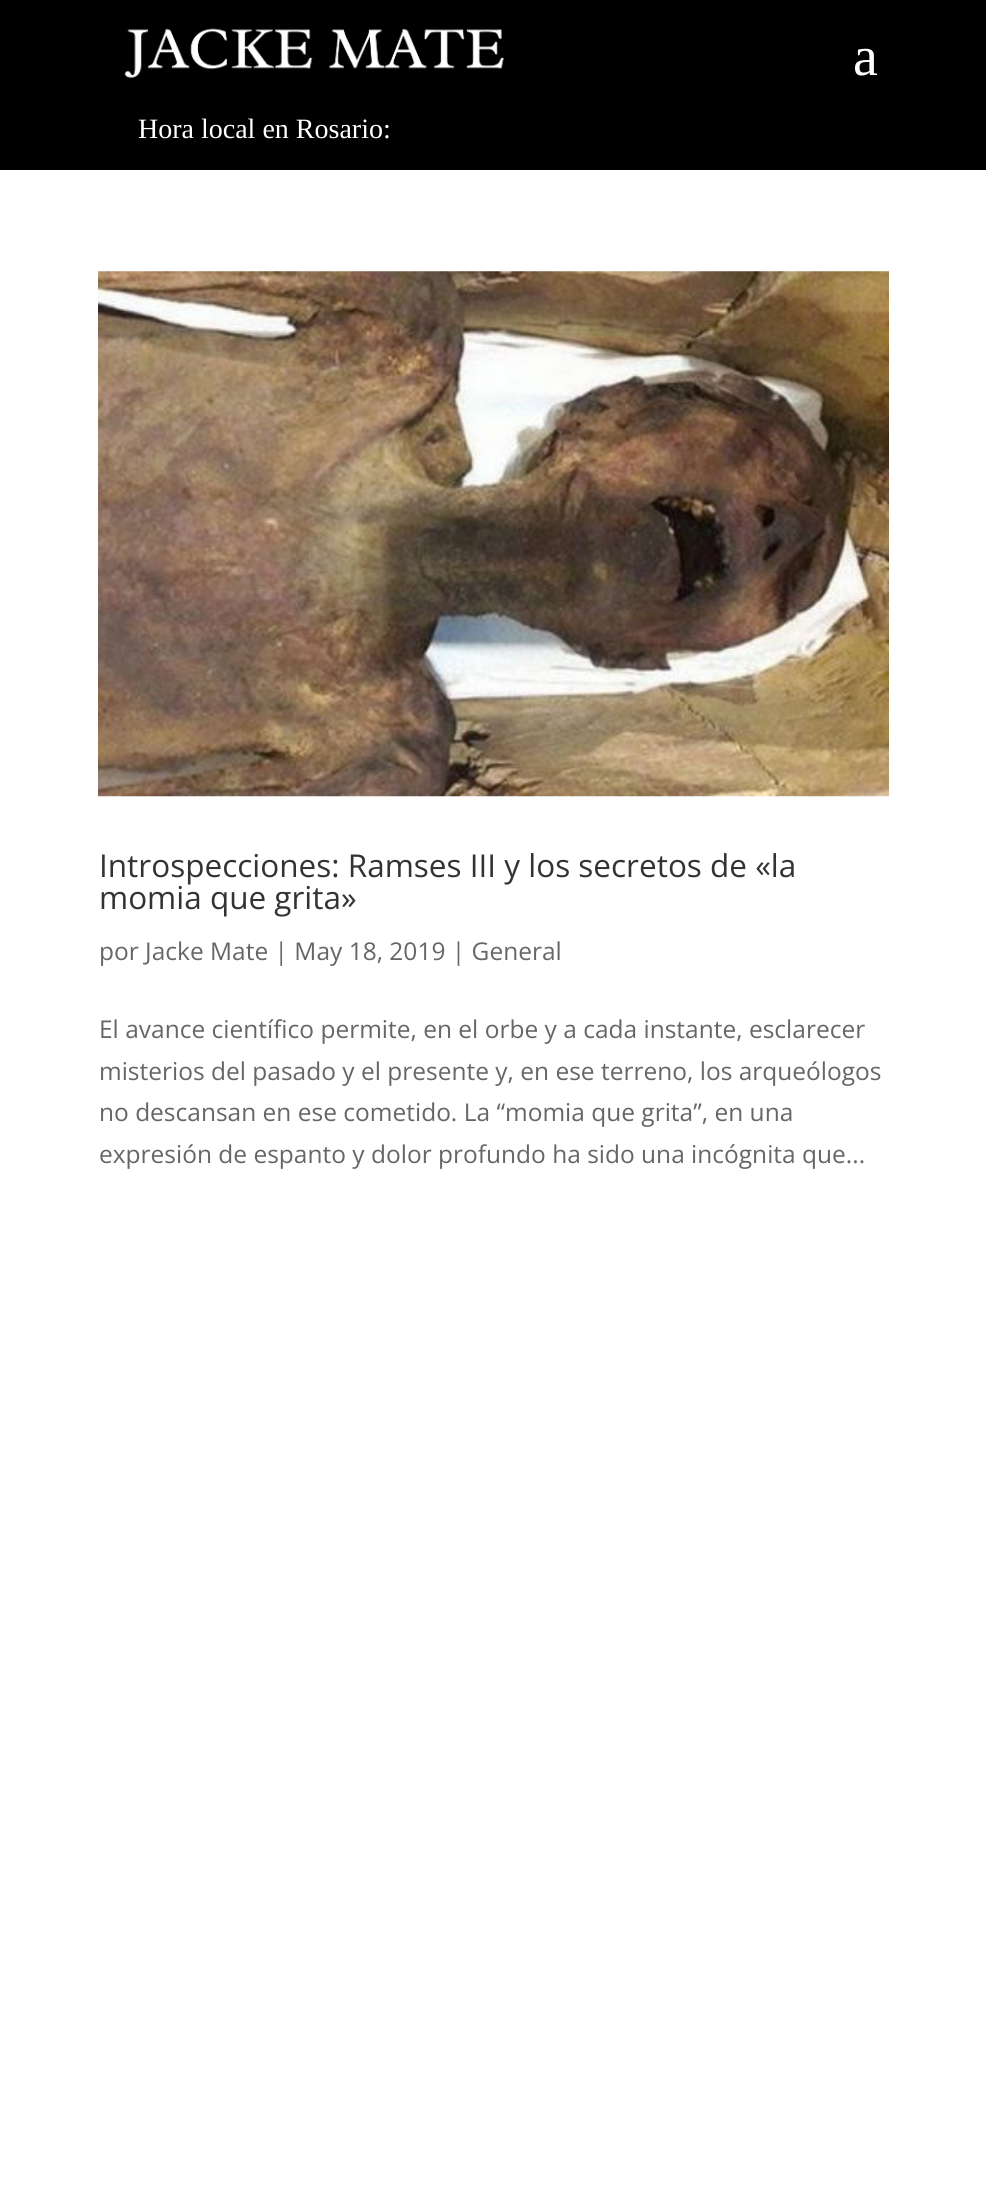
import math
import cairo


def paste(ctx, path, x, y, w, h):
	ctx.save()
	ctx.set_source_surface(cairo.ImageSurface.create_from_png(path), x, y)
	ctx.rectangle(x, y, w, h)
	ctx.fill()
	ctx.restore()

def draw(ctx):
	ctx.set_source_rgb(1, 1, 1)
	ctx.paint()
	ctx.set_source_rgb(0, 0, 0)
	ctx.rectangle(0, 0, 986, 170)
	ctx.fill()
	paste(ctx, 'media/1.png', 124, 28, 380, 50)
	ctx.select_font_face('Liberation Serif')
	ctx.set_font_size(56)
	ctx.set_source_rgb(1, 1, 1)
	ctx.move_to(853, 75)
	ctx.show_text('a')
	ctx.set_font_size(28)
	ctx.move_to(138, 138)
	ctx.show_text('Hora local en Rosario:')
	paste(ctx, 'media/2.png', 98, 271, 791, 526)
	ctx.select_font_face('Open Sans')
	ctx.set_font_size(31.5)
	ctx.set_source_rgb(0.2, 0.2, 0.2)
	ctx.move_to(99, 877)
	ctx.show_text('Introspecciones: Ramses III y los secretos de «la')
	ctx.move_to(99, 909)
	ctx.show_text('momia que grita»')
	ctx.set_font_size(24.5)
	ctx.set_source_rgb(0.4, 0.4, 0.4)
	for x, y, s in [
		(99, 960, 'por Jacke Mate | May 18, 2019 | General'),
		(99, 1038, 'El avance científico permite, en el orbe y a cada instante, esclarecer'),
		(99, 1080, 'misterios del pasado y el presente y, en ese terreno, los arqueólogos'),
		(99, 1121, 'no descansan en ese cometido. La “momia que grita”, en una'),
		(99, 1163, 'expresión de espanto y dolor profundo ha sido una incógnita que...'),
	]:
		ctx.move_to(x, y)
		ctx.show_text(s)


surface = cairo.ImageSurface(cairo.FORMAT_RGB24, 986, 2203)
ctx = cairo.Context(surface)
options = cairo.FontOptions()
options.set_hint_metrics(cairo.HINT_METRICS_OFF)
options.set_hint_style(cairo.HINT_STYLE_NONE)
ctx.set_font_options(options)
ctx.set_miter_limit(4)
draw(ctx)
surface.write_to_png('image.png')
